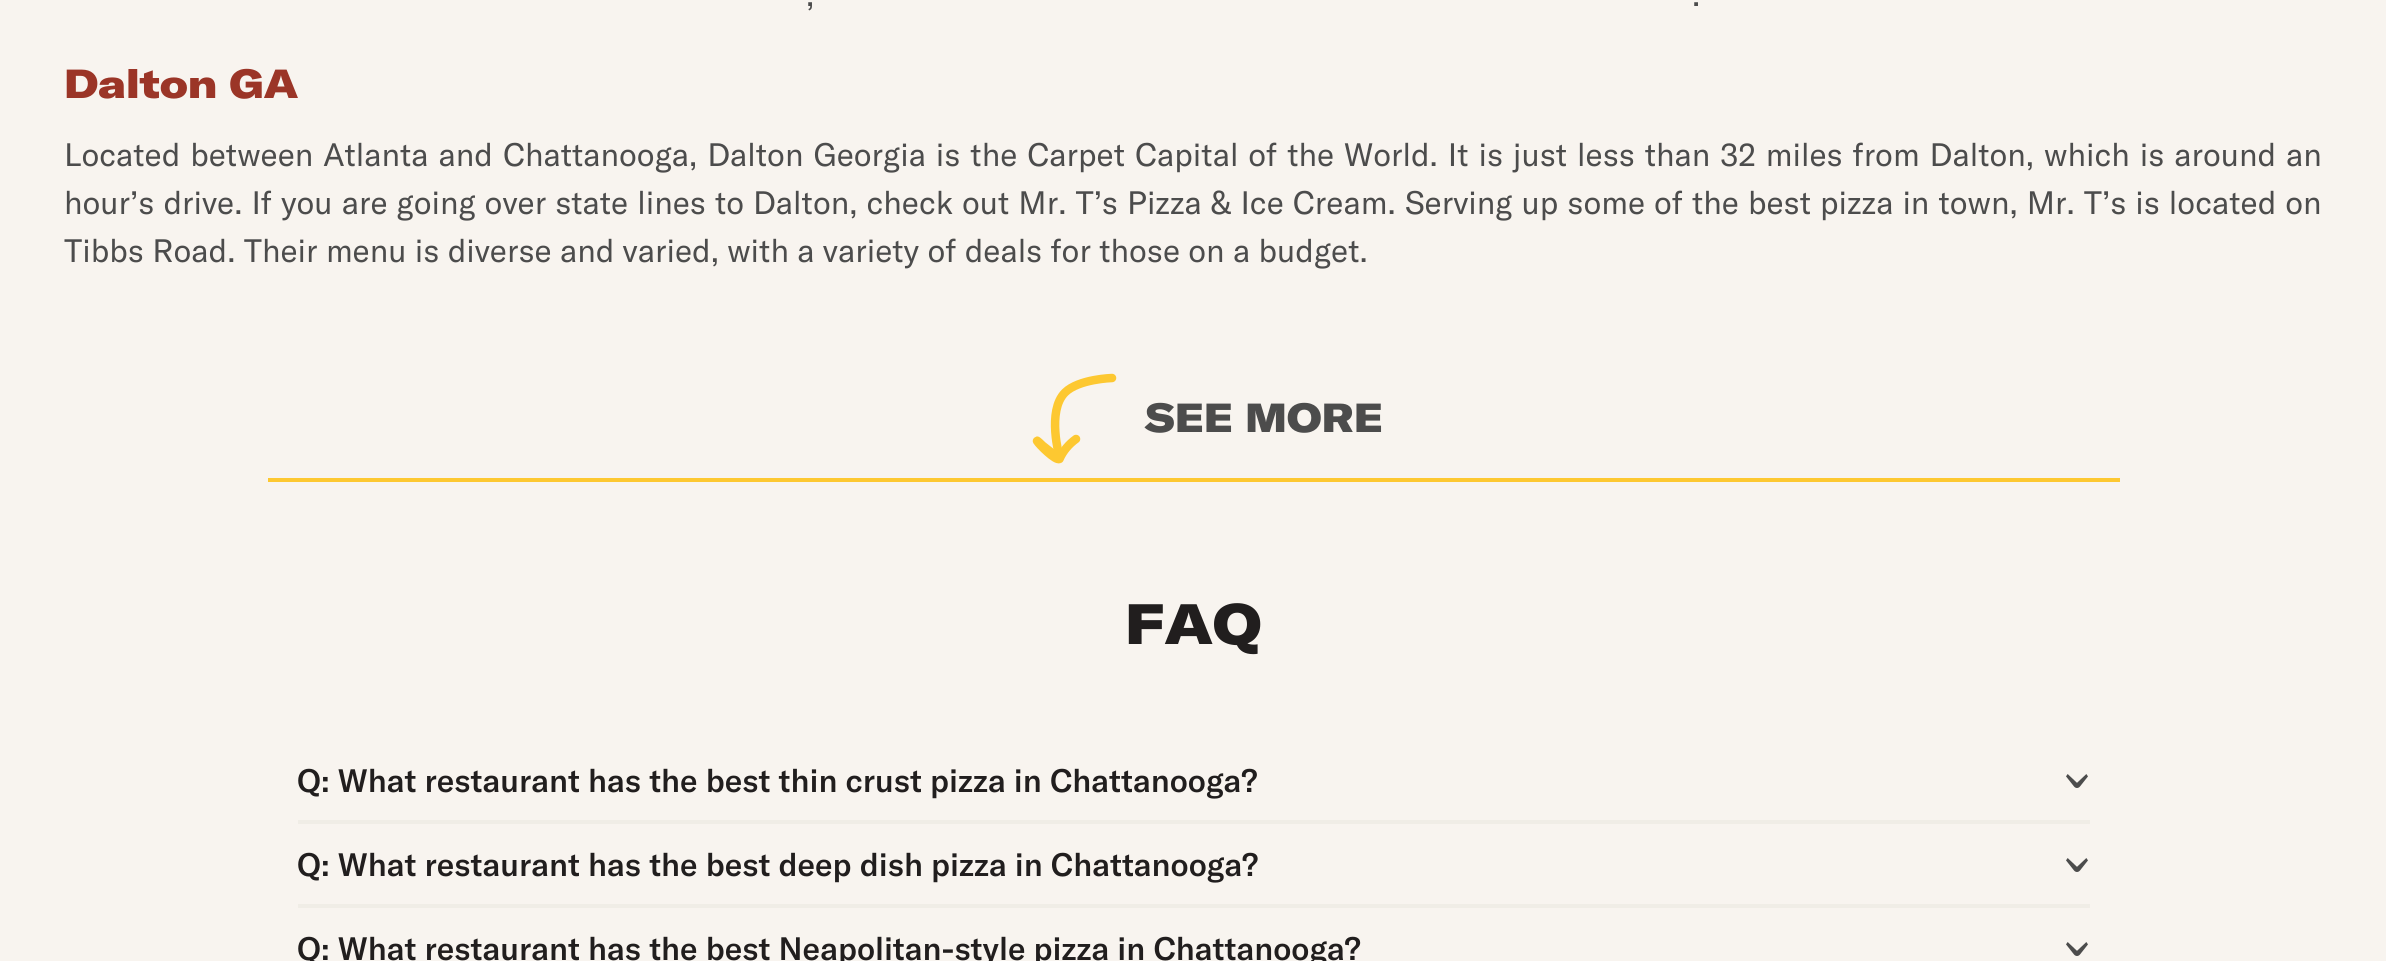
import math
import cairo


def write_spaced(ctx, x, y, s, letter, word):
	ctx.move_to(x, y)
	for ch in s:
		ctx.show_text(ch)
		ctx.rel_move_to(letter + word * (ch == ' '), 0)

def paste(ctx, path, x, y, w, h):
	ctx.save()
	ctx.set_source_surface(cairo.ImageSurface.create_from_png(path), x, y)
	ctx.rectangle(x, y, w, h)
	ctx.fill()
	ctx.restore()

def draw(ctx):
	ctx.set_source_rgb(0.969, 0.957, 0.937)
	ctx.paint()
	ctx.select_font_face('GT America')
	ctx.set_font_size(32)
	ctx.set_source_rgb(0.298, 0.298, 0.298)
	ctx.move_to(806, 6)
	ctx.show_text(',')
	ctx.move_to(1692, 6)
	ctx.show_text('.')
	ctx.select_font_face('GT America Black')
	ctx.set_font_size(40)
	ctx.set_source_rgb(0.608, 0.208, 0.153)
	ctx.move_to(64, 98)
	ctx.show_text('Dalton GA')
	ctx.select_font_face('GT America')
	ctx.set_font_size(32)
	ctx.set_source_rgb(0.298, 0.298, 0.298)
	write_spaced(ctx, 64, 166, 'Located between Atlanta and Chattanooga, Dalton Georgia is the Carpet Capital of the World. It is just less than 32 miles from Dalton, which is around an', 0, 1.65)
	write_spaced(ctx, 64, 214, 'hour’s drive. If you are going over state lines to Dalton, check out Mr. T’s Pizza & Ice Cream. Serving up some of the best pizza in town, Mr. T’s is located on', 0, 0.7)
	ctx.move_to(64, 262)
	ctx.show_text('Tibbs Road. Their menu is diverse and varied, with a variety of deals for those on a budget.')
	ctx.new_path()
	ctx.move_to(1076, 439)
	ctx.curve_to(1069, 444, 1063, 451, 1059.5, 459)
	ctx.curve_to(1055.5, 461, 1039, 444.5, 1037, 441)
	ctx.curve_to(1036, 439, 1042.5, 445.5, 1042.5, 445.5)
	ctx.line_to(1059, 458.5)
	ctx.set_source_rgb(0.992, 0.784, 0.192)
	ctx.set_line_width(8.5)
	ctx.set_line_cap(cairo.LINE_CAP_ROUND)
	ctx.set_line_join(cairo.LINE_JOIN_ROUND)
	ctx.stroke()
	ctx.new_path()
	ctx.move_to(1112, 378)
	ctx.curve_to(1112, 378, 1078.5, 379, 1065, 392.5)
	ctx.curve_to(1046.5, 411, 1059.5, 457, 1059.5, 457)
	ctx.stroke()
	ctx.select_font_face('GT America Black')
	ctx.set_font_size(40)
	ctx.set_source_rgb(0.298, 0.298, 0.298)
	ctx.move_to(1145, 432)
	ctx.show_text('SEE MORE')
	ctx.set_source_rgb(0.992, 0.784, 0.192)
	ctx.rectangle(268, 478, 1852, 4)
	ctx.fill()
	ctx.set_font_size(56)
	ctx.set_source_rgb(0.129, 0.118, 0.118)
	ctx.move_to(1125, 644)
	ctx.show_text('FAQ')
	ctx.set_source_rgb(0.941, 0.929, 0.902)
	ctx.rectangle(298, 820, 1792, 4)
	ctx.fill()
	ctx.select_font_face('GT America Medium')
	ctx.set_font_size(32)
	ctx.set_source_rgb(0.129, 0.118, 0.118)
	ctx.move_to(297, 792)
	ctx.show_text('Q: What restaurant has the best thin crust pizza in Chattanooga?')
	paste(ctx, 'media/1.png', 2066, 774, 22, 14)
	ctx.set_source_rgb(0.941, 0.929, 0.902)
	ctx.rectangle(298, 904, 1792, 4)
	ctx.fill()
	ctx.set_source_rgb(0.129, 0.118, 0.118)
	ctx.move_to(297, 876)
	ctx.show_text('Q: What restaurant has the best deep dish pizza in Chattanooga?')
	paste(ctx, 'media/1.png', 2066, 858, 22, 14)
	ctx.move_to(297, 960)
	ctx.show_text('Q: What restaurant has the best Neapolitan-style pizza in Chattanooga?')
	paste(ctx, 'media/1.png', 2066, 942, 22, 14)


surface = cairo.ImageSurface(cairo.FORMAT_RGB24, 2386, 961)
ctx = cairo.Context(surface)
options = cairo.FontOptions()
options.set_hint_metrics(cairo.HINT_METRICS_OFF)
options.set_hint_style(cairo.HINT_STYLE_NONE)
ctx.set_font_options(options)
ctx.set_miter_limit(4)
draw(ctx)
surface.write_to_png('image.png')
